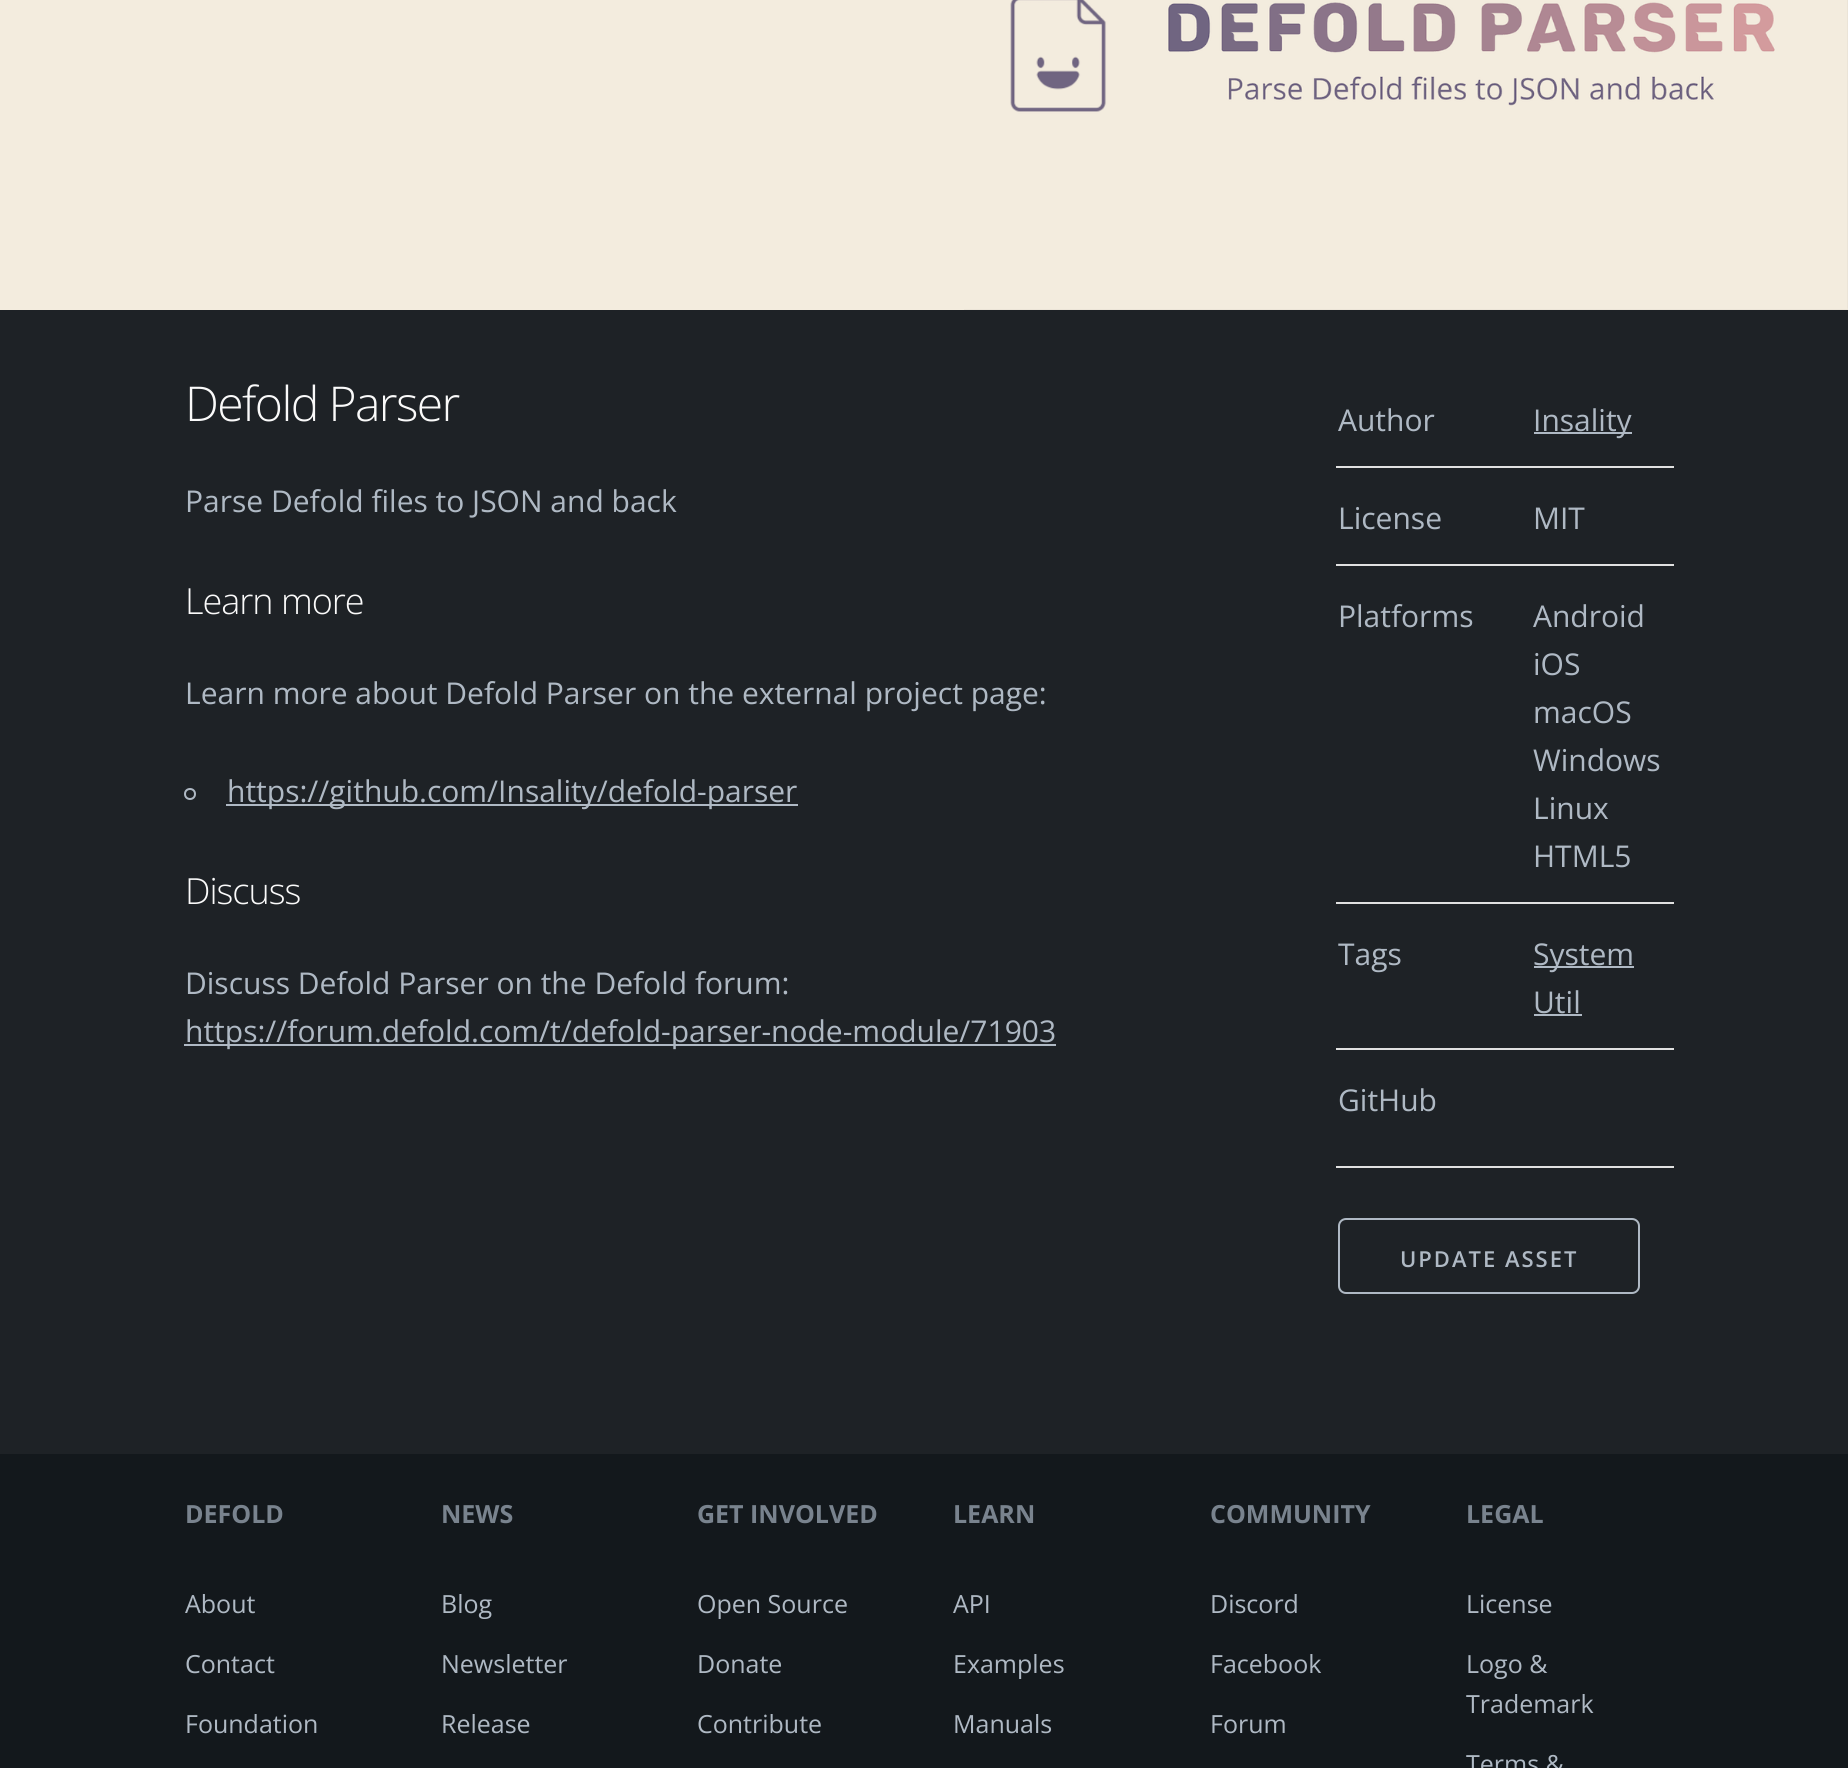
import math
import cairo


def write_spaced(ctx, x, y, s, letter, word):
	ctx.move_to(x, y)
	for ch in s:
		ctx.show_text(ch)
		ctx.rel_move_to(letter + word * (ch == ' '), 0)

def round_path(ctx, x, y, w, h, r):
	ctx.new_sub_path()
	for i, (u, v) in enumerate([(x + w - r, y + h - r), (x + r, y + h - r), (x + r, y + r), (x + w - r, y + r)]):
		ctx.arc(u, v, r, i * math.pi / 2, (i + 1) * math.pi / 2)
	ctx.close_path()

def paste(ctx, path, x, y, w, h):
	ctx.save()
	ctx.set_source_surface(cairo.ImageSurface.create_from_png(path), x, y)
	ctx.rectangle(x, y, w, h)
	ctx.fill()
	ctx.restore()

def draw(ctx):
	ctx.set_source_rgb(0.118, 0.133, 0.149)
	ctx.paint()
	paste(ctx, 'media/1.png', 0, 0, 1848, 310)
	ctx.select_font_face('Open Sans Light')
	ctx.set_font_size(48)
	ctx.set_source_rgb(0.98, 0.98, 0.98)
	write_spaced(ctx, 185, 421, 'Defold Parser', -1.6, 0)
	ctx.select_font_face('Open Sans')
	ctx.set_font_size(30)
	ctx.set_source_rgb(0.686, 0.725, 0.769)
	ctx.move_to(185, 512)
	ctx.show_text('Parse Defold files to JSON and back')
	ctx.select_font_face('Open Sans Light')
	ctx.set_font_size(36)
	ctx.set_source_rgb(0.98, 0.98, 0.98)
	write_spaced(ctx, 185, 614, 'Learn more', -1, 0)
	ctx.select_font_face('Open Sans')
	ctx.set_font_size(30)
	ctx.set_source_rgb(0.686, 0.725, 0.769)
	ctx.move_to(185, 704)
	ctx.show_text('Learn more about Defold Parser on the external project page:')
	ctx.new_path()
	ctx.arc(190, 794, 5, 0, 2 * math.pi)
	ctx.stroke()
	ctx.rectangle(226, 804, 572, 2)
	ctx.fill()
	ctx.move_to(227, 802)
	ctx.show_text('https://github.com/Insality/defold-parser')
	ctx.select_font_face('Open Sans Light')
	ctx.set_font_size(36)
	ctx.set_source_rgb(0.98, 0.98, 0.98)
	write_spaced(ctx, 185, 904, 'Discuss', -1, 0)
	ctx.select_font_face('Open Sans')
	ctx.set_font_size(30)
	ctx.set_source_rgb(0.686, 0.725, 0.769)
	ctx.move_to(185, 994)
	ctx.show_text('Discuss Defold Parser on the Defold forum:')
	ctx.rectangle(184, 1044, 872, 2)
	ctx.fill()
	ctx.move_to(185, 1042)
	ctx.show_text('https://forum.defold.com/t/defold-parser-node-module/71903')
	ctx.move_to(1338, 431)
	ctx.show_text('Author')
	ctx.set_source_rgb(0.882, 0.882, 0.882)
	ctx.rectangle(1336, 466, 338, 2)
	ctx.fill()
	ctx.set_source_rgb(0.686, 0.725, 0.769)
	ctx.rectangle(1534, 432, 98, 2)
	ctx.fill()
	ctx.move_to(1533, 431)
	ctx.show_text('Insality')
	ctx.move_to(1338, 529)
	ctx.show_text('License')
	ctx.set_source_rgb(0.882, 0.882, 0.882)
	ctx.rectangle(1336, 564, 338, 2)
	ctx.fill()
	ctx.set_source_rgb(0.686, 0.725, 0.769)
	ctx.move_to(1533, 529)
	ctx.show_text('MIT')
	ctx.move_to(1338, 627)
	ctx.show_text('Platforms')
	ctx.set_source_rgb(0.882, 0.882, 0.882)
	ctx.rectangle(1336, 902, 338, 2)
	ctx.fill()
	ctx.set_source_rgb(0.686, 0.725, 0.769)
	for x, y, s in [
		(1533, 627, 'Android'),
		(1533, 675, 'iOS'),
		(1533, 723, 'macOS'),
		(1533, 771, 'Windows'),
		(1533, 819, 'Linux'),
		(1533, 867, 'HTML5'),
		(1338, 965, 'Tags'),
	]:
		ctx.move_to(x, y)
		ctx.show_text(s)
	ctx.set_source_rgb(0.882, 0.882, 0.882)
	ctx.rectangle(1336, 1048, 338, 2)
	ctx.fill()
	ctx.set_source_rgb(0.686, 0.725, 0.769)
	ctx.rectangle(1534, 966, 100, 2)
	ctx.fill()
	ctx.move_to(1533, 965)
	ctx.show_text('System')
	ctx.move_to(1533, 1013)
	ctx.show_text('Util')
	ctx.rectangle(1534, 1014, 48, 2)
	ctx.fill()
	ctx.move_to(1338, 1111)
	ctx.show_text('GitHub')
	ctx.set_source_rgb(0.882, 0.882, 0.882)
	ctx.rectangle(1336, 1166, 338, 2)
	ctx.fill()
	round_path(ctx, 1339, 1219, 300, 74, 7)
	ctx.set_source_rgb(0.686, 0.725, 0.769)
	ctx.stroke()
	ctx.select_font_face('Open Sans SemiBold')
	ctx.set_font_size(22)
	write_spaced(ctx, 1400, 1267, 'UPDATE ASSET', 2, 0)
	ctx.set_source_rgb(0.078, 0.094, 0.11)
	ctx.rectangle(0, 1454, 1848, 314)
	ctx.fill()
	ctx.select_font_face('Open Sans', cairo.FONT_SLANT_NORMAL, cairo.FONT_WEIGHT_BOLD)
	ctx.set_font_size(25)
	ctx.set_source_rgb(0.475, 0.514, 0.557)
	ctx.move_to(185, 1523)
	ctx.show_text('DEFOLD')
	ctx.select_font_face('Open Sans')
	ctx.set_source_rgb(0.686, 0.725, 0.769)
	for x, y, s in [
		(185, 1613, 'About'),
		(185, 1673, 'Contact'),
		(185, 1733, 'Foundation'),
	]:
		ctx.move_to(x, y)
		ctx.show_text(s)
	ctx.select_font_face('Open Sans', cairo.FONT_SLANT_NORMAL, cairo.FONT_WEIGHT_BOLD)
	ctx.set_source_rgb(0.475, 0.514, 0.557)
	ctx.move_to(441, 1523)
	ctx.show_text('NEWS')
	ctx.select_font_face('Open Sans')
	ctx.set_source_rgb(0.686, 0.725, 0.769)
	for x, y, s in [
		(441, 1613, 'Blog'),
		(441, 1673, 'Newsletter'),
		(441, 1733, 'Release'),
	]:
		ctx.move_to(x, y)
		ctx.show_text(s)
	ctx.select_font_face('Open Sans', cairo.FONT_SLANT_NORMAL, cairo.FONT_WEIGHT_BOLD)
	ctx.set_source_rgb(0.475, 0.514, 0.557)
	ctx.move_to(697, 1523)
	ctx.show_text('GET INVOLVED')
	ctx.select_font_face('Open Sans')
	ctx.set_source_rgb(0.686, 0.725, 0.769)
	for x, y, s in [
		(697, 1613, 'Open Source'),
		(697, 1673, 'Donate'),
		(697, 1733, 'Contribute'),
	]:
		ctx.move_to(x, y)
		ctx.show_text(s)
	ctx.select_font_face('Open Sans', cairo.FONT_SLANT_NORMAL, cairo.FONT_WEIGHT_BOLD)
	ctx.set_source_rgb(0.475, 0.514, 0.557)
	ctx.move_to(953, 1523)
	ctx.show_text('LEARN')
	ctx.select_font_face('Open Sans')
	ctx.set_source_rgb(0.686, 0.725, 0.769)
	for x, y, s in [
		(953, 1613, 'API'),
		(953, 1673, 'Examples'),
		(953, 1733, 'Manuals'),
	]:
		ctx.move_to(x, y)
		ctx.show_text(s)
	ctx.select_font_face('Open Sans', cairo.FONT_SLANT_NORMAL, cairo.FONT_WEIGHT_BOLD)
	ctx.set_source_rgb(0.475, 0.514, 0.557)
	ctx.move_to(1210, 1523)
	ctx.show_text('COMMUNITY')
	ctx.select_font_face('Open Sans')
	ctx.set_source_rgb(0.686, 0.725, 0.769)
	for x, y, s in [
		(1210, 1613, 'Discord'),
		(1210, 1673, 'Facebook'),
		(1210, 1733, 'Forum'),
	]:
		ctx.move_to(x, y)
		ctx.show_text(s)
	ctx.select_font_face('Open Sans', cairo.FONT_SLANT_NORMAL, cairo.FONT_WEIGHT_BOLD)
	ctx.set_source_rgb(0.475, 0.514, 0.557)
	ctx.move_to(1466, 1523)
	ctx.show_text('LEGAL')
	ctx.select_font_face('Open Sans')
	ctx.set_source_rgb(0.686, 0.725, 0.769)
	for x, y, s in [
		(1466, 1613, 'License'),
		(1466, 1673, 'Logo &'),
		(1466, 1713, 'Trademark'),
		(1466, 1773, 'Terms &'),
	]:
		ctx.move_to(x, y)
		ctx.show_text(s)


surface = cairo.ImageSurface(cairo.FORMAT_RGB24, 1848, 1768)
ctx = cairo.Context(surface)
options = cairo.FontOptions()
options.set_hint_metrics(cairo.HINT_METRICS_OFF)
options.set_hint_style(cairo.HINT_STYLE_NONE)
ctx.set_font_options(options)
ctx.set_miter_limit(4)
draw(ctx)
surface.write_to_png('image.png')
